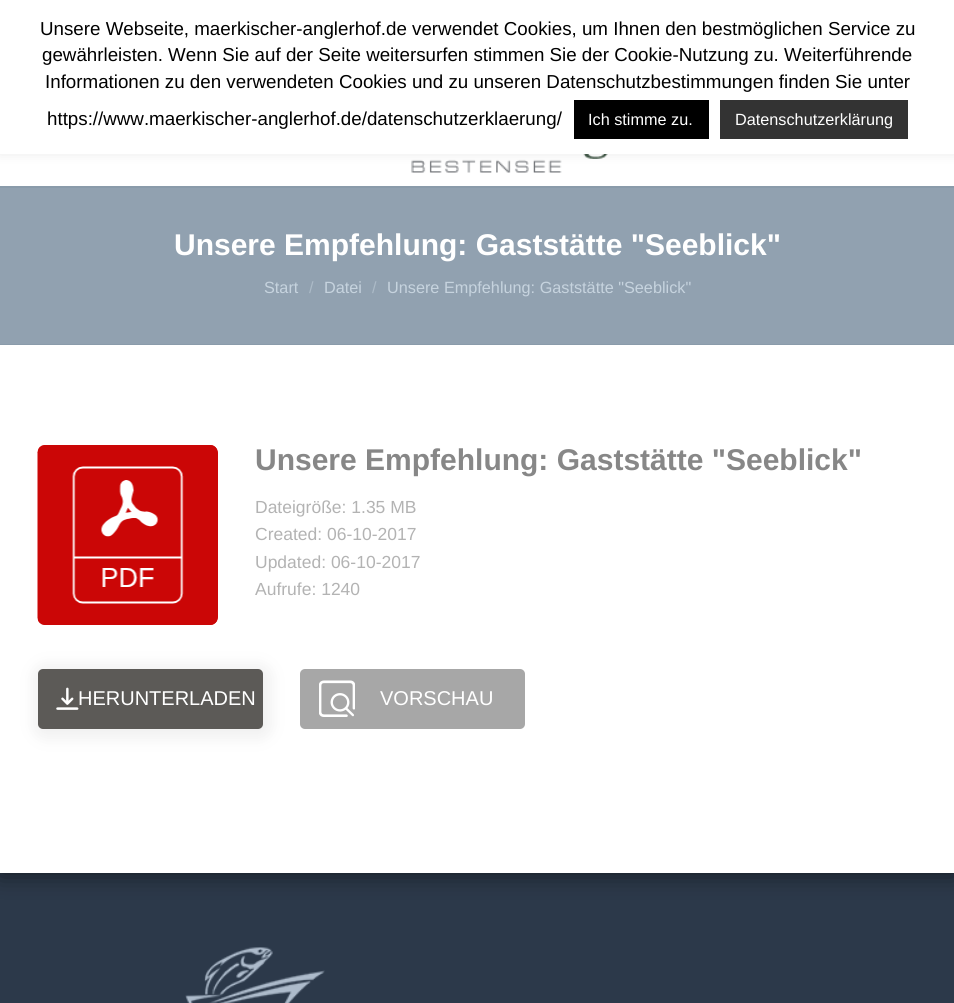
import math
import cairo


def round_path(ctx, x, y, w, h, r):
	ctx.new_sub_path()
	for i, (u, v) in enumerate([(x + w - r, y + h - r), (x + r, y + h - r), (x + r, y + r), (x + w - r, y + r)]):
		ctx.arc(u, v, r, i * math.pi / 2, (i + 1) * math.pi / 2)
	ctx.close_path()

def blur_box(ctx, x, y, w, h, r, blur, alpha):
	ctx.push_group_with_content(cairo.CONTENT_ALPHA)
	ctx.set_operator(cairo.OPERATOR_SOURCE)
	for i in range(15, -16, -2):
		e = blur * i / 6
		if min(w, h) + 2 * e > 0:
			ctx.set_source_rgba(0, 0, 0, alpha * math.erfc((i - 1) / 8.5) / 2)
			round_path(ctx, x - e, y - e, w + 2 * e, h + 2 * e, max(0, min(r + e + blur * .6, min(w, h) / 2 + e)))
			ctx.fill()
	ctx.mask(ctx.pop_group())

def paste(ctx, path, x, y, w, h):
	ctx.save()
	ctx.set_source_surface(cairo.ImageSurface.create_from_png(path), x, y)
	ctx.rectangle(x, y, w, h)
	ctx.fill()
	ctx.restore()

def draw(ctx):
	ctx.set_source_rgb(0.173, 0.224, 0.29)
	ctx.paint()
	ctx.set_source_rgb(0, 0, 0)
	blur_box(ctx, 0, 186, 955, 687, 0, 12.5, 0.6)
	ctx.set_source_rgb(1, 1, 1)
	ctx.rectangle(0, 154, 954, 32)
	ctx.fill()
	paste(ctx, 'media/1.png', 411, 154, 197, 19)
	ctx.set_source_rgb(0.675, 0.671, 0.671)
	blur_box(ctx, 0, -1, 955, 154, 0, 6, 0.3)
	ctx.set_source_rgb(1, 1, 1)
	ctx.rectangle(0, 0, 954, 154)
	ctx.fill()
	ctx.select_font_face('Liberation Sans')
	ctx.set_font_size(18.75)
	ctx.set_source_rgb(0, 0, 0)
	for x, y, s in [
		(40, 35, 'Unsere Webseite, maerkischer-anglerhof.de verwendet Cookies, um Ihnen den bestmöglichen Service zu'),
		(42, 61, 'gewährleisten. Wenn Sie auf der Seite weitersurfen stimmen Sie der Cookie-Nutzung zu. Weiterführende'),
		(45, 88, 'Informationen zu den verwendeten Cookies und zu unseren Datenschutzbestimmungen finden Sie unter'),
		(47, 125, 'https://www.maerkischer-anglerhof.de/datenschutzerklaerung/'),
	]:
		ctx.move_to(x, y)
		ctx.show_text(s)
	ctx.rectangle(574, 100, 135, 39)
	ctx.fill()
	ctx.set_font_size(16.25)
	ctx.set_source_rgb(1, 1, 1)
	ctx.move_to(588, 125)
	ctx.show_text('Ich stimme zu.')
	ctx.set_source_rgb(0.2, 0.2, 0.2)
	ctx.rectangle(720, 100, 188, 39)
	ctx.fill()
	ctx.set_source_rgb(1, 1, 1)
	ctx.move_to(735, 125)
	ctx.show_text('Datenschutzerklärung')
	ctx.set_source_rgb(0.541, 0.608, 0.667)
	ctx.rectangle(0, 186, 954, 2)
	ctx.fill()
	ctx.set_source_rgb(1, 1, 1)
	ctx.rectangle(0, 345, 954, 528)
	ctx.fill()
	ctx.set_source_rgb(0.569, 0.631, 0.69)
	ctx.rectangle(0, 188, 954, 156)
	ctx.fill()
	ctx.select_font_face('Liberation Sans', cairo.FONT_SLANT_NORMAL, cairo.FONT_WEIGHT_BOLD)
	ctx.set_font_size(30)
	ctx.set_source_rgb(1, 1, 1)
	ctx.move_to(174, 255)
	ctx.show_text('Unsere Empfehlung: Gaststätte "Seeblick"')
	ctx.select_font_face('Liberation Sans')
	ctx.set_font_size(16.25)
	ctx.set_source_rgb(0.776, 0.827, 0.871)
	ctx.move_to(264, 293)
	ctx.show_text('Start')
	ctx.set_source_rgb(0.675, 0.729, 0.78)
	ctx.move_to(309, 293)
	ctx.show_text('/')
	ctx.set_source_rgb(0.776, 0.827, 0.871)
	ctx.move_to(324, 293)
	ctx.show_text('Datei')
	ctx.set_source_rgb(0.675, 0.729, 0.78)
	ctx.move_to(372, 293)
	ctx.show_text('/')
	ctx.set_source_rgb(0.776, 0.827, 0.871)
	ctx.move_to(387, 293)
	ctx.show_text('Unsere Empfehlung: Gaststätte "Seeblick"')
	ctx.set_source_rgb(0.541, 0.608, 0.667)
	ctx.rectangle(0, 344, 954, 1)
	ctx.fill()
	ctx.set_source_rgb(0.796, 0.024, 0.024)
	round_path(ctx, 38, 445, 180, 180, 8)
	ctx.fill()
	paste(ctx, 'media/2.png', 37, 445, 181, 180)
	ctx.select_font_face('Liberation Sans', cairo.FONT_SLANT_NORMAL, cairo.FONT_WEIGHT_BOLD)
	ctx.set_font_size(30)
	ctx.set_source_rgb(0.529, 0.529, 0.529)
	ctx.move_to(255, 470)
	ctx.show_text('Unsere Empfehlung: Gaststätte "Seeblick"')
	ctx.select_font_face('Liberation Sans')
	ctx.set_font_size(17.5)
	ctx.set_source_rgb(0.702, 0.702, 0.702)
	for x, y, s in [
		(255, 513, 'Dateigröße: 1.35 MB'),
		(255, 540, 'Created: 06-10-2017'),
		(255, 568, 'Updated: 06-10-2017'),
		(255, 595, 'Aufrufe: 1240'),
	]:
		ctx.move_to(x, y)
		ctx.show_text(s)
	ctx.set_source_rgb(0.941, 0.941, 0.941)
	blur_box(ctx, 34, 665, 237, 73, 11, 7.5, 1)
	ctx.set_source_rgb(0.361, 0.353, 0.341)
	round_path(ctx, 38, 669, 225, 60, 5)
	ctx.fill()
	paste(ctx, 'media/3.png', 56, 687, 23, 23)
	ctx.set_font_size(20)
	ctx.set_source_rgb(1, 1, 1)
	ctx.move_to(78, 705)
	ctx.show_text('HERUNTERLADEN')
	ctx.set_source_rgb(0.655, 0.655, 0.655)
	round_path(ctx, 300, 669, 225, 60, 5)
	ctx.fill()
	paste(ctx, 'media/4.png', 319, 680, 36, 37)
	ctx.set_source_rgb(1, 1, 1)
	ctx.move_to(380, 705)
	ctx.show_text('VORSCHAU')
	paste(ctx, 'media/5.png', 185, 947, 140, 56)


surface = cairo.ImageSurface(cairo.FORMAT_RGB24, 954, 1003)
ctx = cairo.Context(surface)
options = cairo.FontOptions()
options.set_hint_metrics(cairo.HINT_METRICS_OFF)
options.set_hint_style(cairo.HINT_STYLE_NONE)
ctx.set_font_options(options)
ctx.set_miter_limit(4)
draw(ctx)
surface.write_to_png('image.png')
